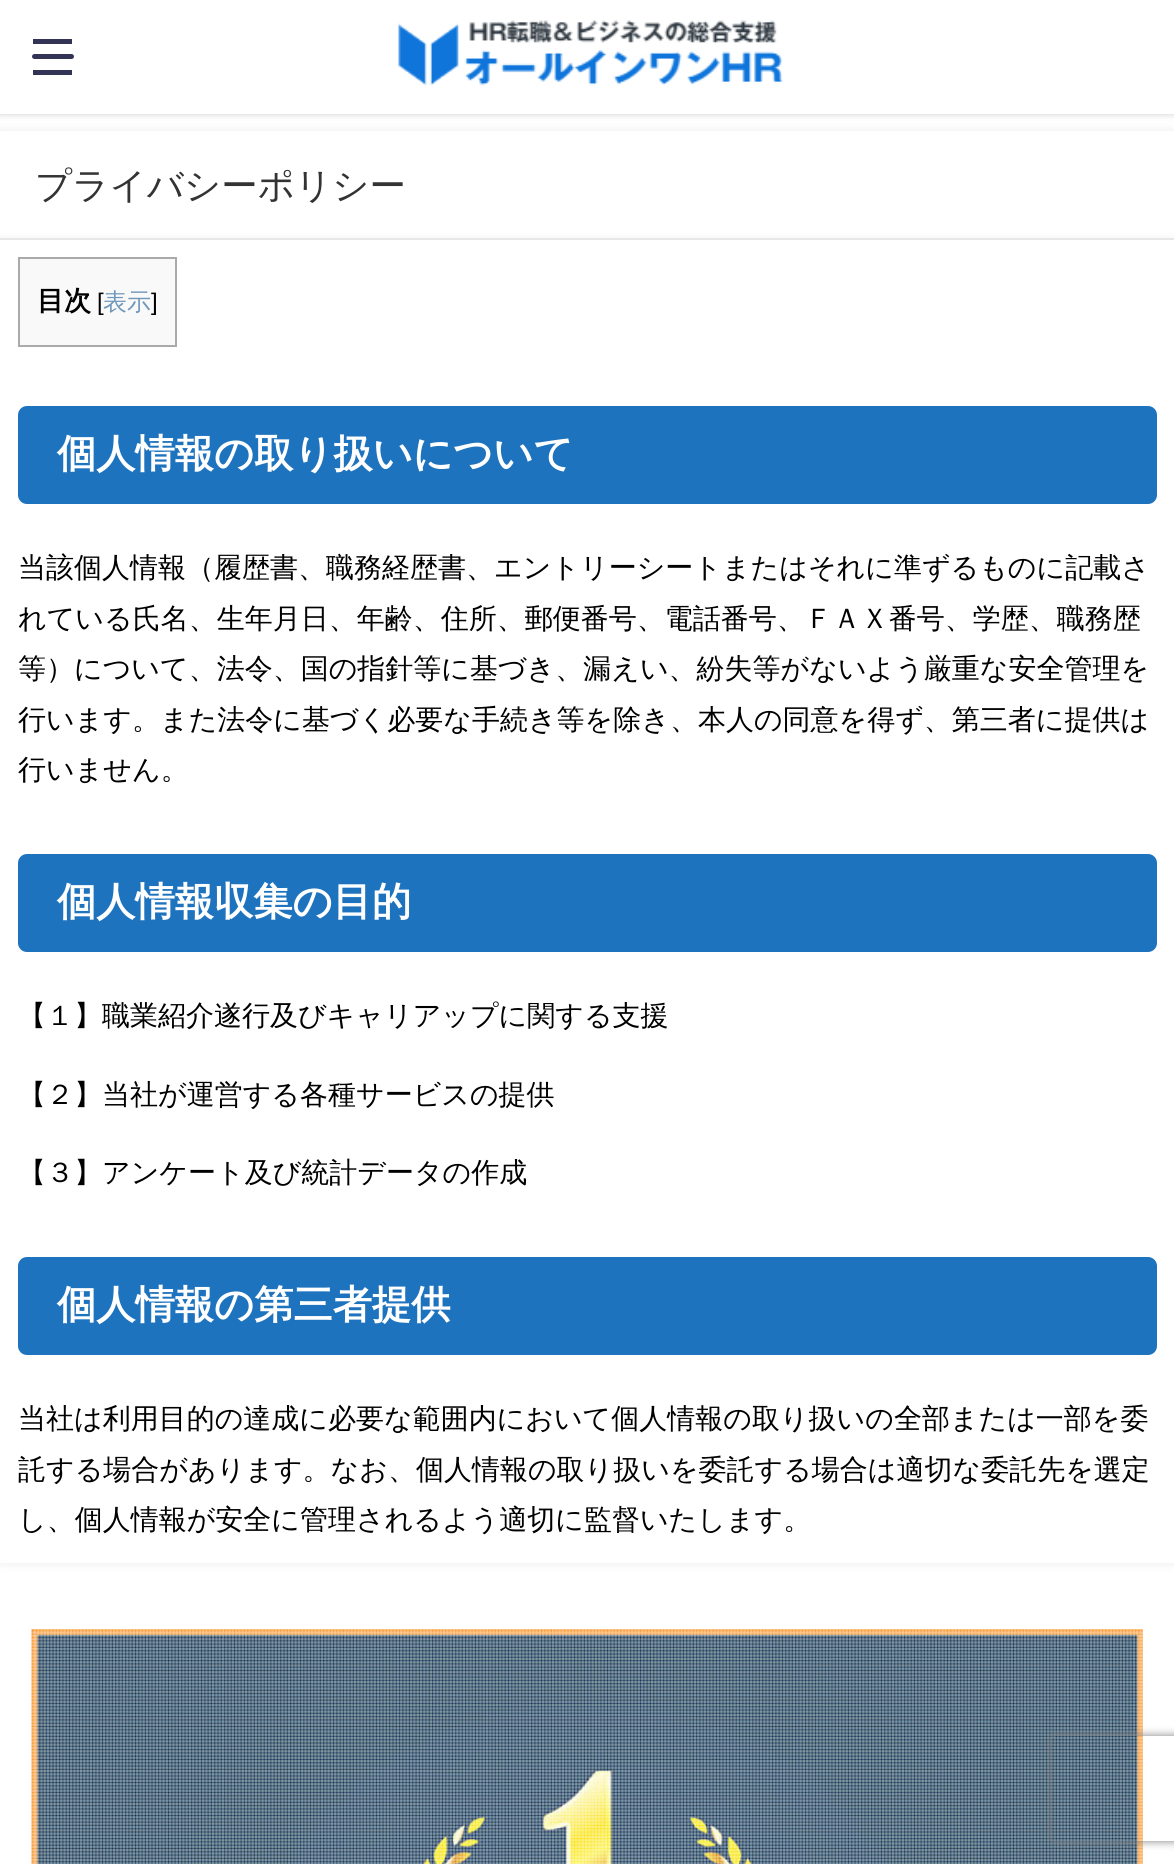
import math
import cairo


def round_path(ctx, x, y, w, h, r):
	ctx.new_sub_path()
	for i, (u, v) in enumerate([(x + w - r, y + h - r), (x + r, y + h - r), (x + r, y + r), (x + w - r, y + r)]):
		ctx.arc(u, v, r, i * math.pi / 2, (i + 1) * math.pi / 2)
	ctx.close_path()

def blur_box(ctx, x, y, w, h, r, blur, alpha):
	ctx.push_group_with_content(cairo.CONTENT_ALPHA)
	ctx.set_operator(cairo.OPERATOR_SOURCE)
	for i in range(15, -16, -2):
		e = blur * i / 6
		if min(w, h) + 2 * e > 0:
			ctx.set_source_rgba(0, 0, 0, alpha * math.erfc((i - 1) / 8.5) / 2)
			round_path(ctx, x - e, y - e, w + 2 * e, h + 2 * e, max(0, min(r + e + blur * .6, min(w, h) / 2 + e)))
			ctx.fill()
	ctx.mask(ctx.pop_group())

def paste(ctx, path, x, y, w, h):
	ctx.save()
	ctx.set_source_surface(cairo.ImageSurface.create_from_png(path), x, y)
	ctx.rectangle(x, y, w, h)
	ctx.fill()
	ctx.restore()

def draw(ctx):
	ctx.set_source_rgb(1, 1, 1)
	ctx.paint()
	ctx.set_source_rgb(0, 0, 0)
	blur_box(ctx, 0, 0, 1174, 114, 0, 3.5, 0.2)
	ctx.set_source_rgb(1, 1, 1)
	ctx.rectangle(0, 0, 1174, 114)
	ctx.fill()
	ctx.set_source_rgb(0.2, 0.2, 0.333)
	ctx.rectangle(33, 39, 39, 5)
	ctx.fill()
	round_path(ctx, 32, 54, 42, 5, 2.5)
	ctx.fill()
	ctx.rectangle(33, 70, 39, 5)
	ctx.fill()
	paste(ctx, 'media/1.png', 398, 20, 385, 66)
	ctx.set_source_rgb(0.588, 0.588, 0.588)
	blur_box(ctx, 0, 131, 1174, 109, 0, 4.5, 0.2)
	ctx.set_source_rgb(1, 1, 1)
	ctx.rectangle(0, 131, 1174, 107)
	ctx.fill()
	ctx.set_source_rgb(0.933, 0.933, 0.933)
	ctx.rectangle(0, 238, 1174, 2)
	ctx.fill()
	ctx.select_font_face('WenQuanYi Zen Hei Medium')
	ctx.set_font_size(36.4)
	ctx.set_source_rgb(0.2, 0.2, 0.2)
	ctx.move_to(35, 198)
	ctx.show_text('プライバシーポリシー')
	ctx.set_source_rgb(0.588, 0.588, 0.588)
	blur_box(ctx, 0, 240, 1174, 1323, 0, 4.5, 0.2)
	ctx.set_source_rgb(1, 1, 1)
	ctx.rectangle(0, 240, 1174, 1323)
	ctx.fill()
	ctx.set_source_rgb(0.976, 0.976, 0.976)
	ctx.rectangle(19, 258, 157, 88)
	ctx.fill_preserve()
	ctx.set_source_rgb(0.667, 0.667, 0.667)
	ctx.stroke()
	ctx.select_font_face('WenQuanYi Zen Hei', cairo.FONT_SLANT_NORMAL, cairo.FONT_WEIGHT_BOLD)
	ctx.set_font_size(27)
	ctx.set_source_rgb(0, 0, 0)
	ctx.move_to(37, 310)
	ctx.show_text('目次')
	ctx.select_font_face('Liberation Sans')
	ctx.set_font_size(24)
	ctx.move_to(97, 310)
	ctx.show_text('[')
	ctx.select_font_face('WenQuanYi Zen Hei Medium')
	ctx.set_source_rgb(0.435, 0.592, 0.737)
	ctx.move_to(103, 310)
	ctx.show_text('表示')
	ctx.select_font_face('Liberation Sans')
	ctx.set_source_rgb(0, 0, 0)
	ctx.move_to(151, 310)
	ctx.show_text(']')
	ctx.set_source_rgb(0.118, 0.451, 0.745)
	round_path(ctx, 18, 406, 1139, 98, 9)
	ctx.fill()
	ctx.select_font_face('WenQuanYi Zen Hei', cairo.FONT_SLANT_NORMAL, cairo.FONT_WEIGHT_BOLD)
	ctx.set_font_size(39.25)
	ctx.set_source_rgb(1, 1, 1)
	ctx.move_to(57, 467)
	ctx.show_text('個人情報の取り扱いについて')
	ctx.select_font_face('WenQuanYi Zen Hei Medium')
	ctx.set_font_size(28)
	ctx.set_source_rgb(0, 0, 0)
	for x, y, s in [
		(18, 577, '当該個人情報（履歴書、職務経歴書、エントリーシートまたはそれに準ずるものに記載さ'),
		(18, 628, 'れている氏名、生年月日、年齢、住所、郵便番号、電話番号、ＦＡＸ番号、学歴、職務歴'),
		(18, 678, '等）について、法令、国の指針等に基づき、漏えい、紛失等がないよう厳重な安全管理を'),
		(18, 729, '行います。また法令に基づく必要な手続き等を除き、本人の同意を得ず、第三者に提供は'),
		(18, 779, '行いません。'),
	]:
		ctx.move_to(x, y)
		ctx.show_text(s)
	ctx.set_source_rgb(0.118, 0.451, 0.745)
	round_path(ctx, 18, 854, 1139, 98, 9)
	ctx.fill()
	ctx.select_font_face('WenQuanYi Zen Hei', cairo.FONT_SLANT_NORMAL, cairo.FONT_WEIGHT_BOLD)
	ctx.set_font_size(39.25)
	ctx.set_source_rgb(1, 1, 1)
	ctx.move_to(57, 915)
	ctx.show_text('個人情報収集の目的')
	ctx.select_font_face('WenQuanYi Zen Hei Medium')
	ctx.set_font_size(28)
	ctx.set_source_rgb(0, 0, 0)
	for x, y, s in [
		(18, 1025, '【１】職業紹介遂行及びキャリアップに関する支援'),
		(18, 1104, '【２】当社が運営する各種サービスの提供'),
		(18, 1182, '【３】アンケート及び統計データの作成'),
	]:
		ctx.move_to(x, y)
		ctx.show_text(s)
	ctx.set_source_rgb(0.118, 0.451, 0.745)
	round_path(ctx, 18, 1257, 1139, 98, 9)
	ctx.fill()
	ctx.select_font_face('WenQuanYi Zen Hei', cairo.FONT_SLANT_NORMAL, cairo.FONT_WEIGHT_BOLD)
	ctx.set_font_size(39.25)
	ctx.set_source_rgb(1, 1, 1)
	ctx.move_to(57, 1318)
	ctx.show_text('個人情報の第三者提供')
	ctx.select_font_face('WenQuanYi Zen Hei Medium')
	ctx.set_font_size(28)
	ctx.set_source_rgb(0, 0, 0)
	for x, y, s in [
		(18, 1428, '当社は利用目的の達成に必要な範囲内において個人情報の取り扱いの全部または一部を委'),
		(18, 1479, '託する場合があります。なお、個人情報の取り扱いを委託する場合は適切な委託先を選定'),
		(18, 1529, 'し、個人情報が安全に管理されるよう適切に監督いたします。'),
	]:
		ctx.move_to(x, y)
		ctx.show_text(s)
	paste(ctx, 'media/2.png', 31, 1629, 1112, 235)
	ctx.save()
	ctx.set_fill_rule(cairo.FILL_RULE_EVEN_ODD)
	ctx.new_path()
	ctx.move_to(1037, 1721)
	ctx.line_to(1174, 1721)
	ctx.line_to(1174, 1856)
	ctx.line_to(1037, 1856)
	ctx.close_path()
	ctx.move_to(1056, 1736)
	ctx.line_to(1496, 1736)
	ctx.curve_to(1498, 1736, 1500, 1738, 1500, 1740)
	ctx.line_to(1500, 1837)
	ctx.curve_to(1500, 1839, 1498, 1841, 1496, 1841)
	ctx.line_to(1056, 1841)
	ctx.curve_to(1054, 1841, 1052, 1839, 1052, 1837)
	ctx.line_to(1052, 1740)
	ctx.curve_to(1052, 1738, 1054, 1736, 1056, 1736)
	ctx.close_path()
	ctx.clip()
	ctx.set_source_rgb(0.502, 0.502, 0.502)
	blur_box(ctx, 1052, 1736, 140, 105, 4, 4.5, 1)
	ctx.restore()


surface = cairo.ImageSurface(cairo.FORMAT_RGB24, 1174, 1864)
ctx = cairo.Context(surface)
options = cairo.FontOptions()
options.set_hint_metrics(cairo.HINT_METRICS_OFF)
options.set_hint_style(cairo.HINT_STYLE_NONE)
ctx.set_font_options(options)
ctx.set_miter_limit(4)
draw(ctx)
surface.write_to_png('image.png')
